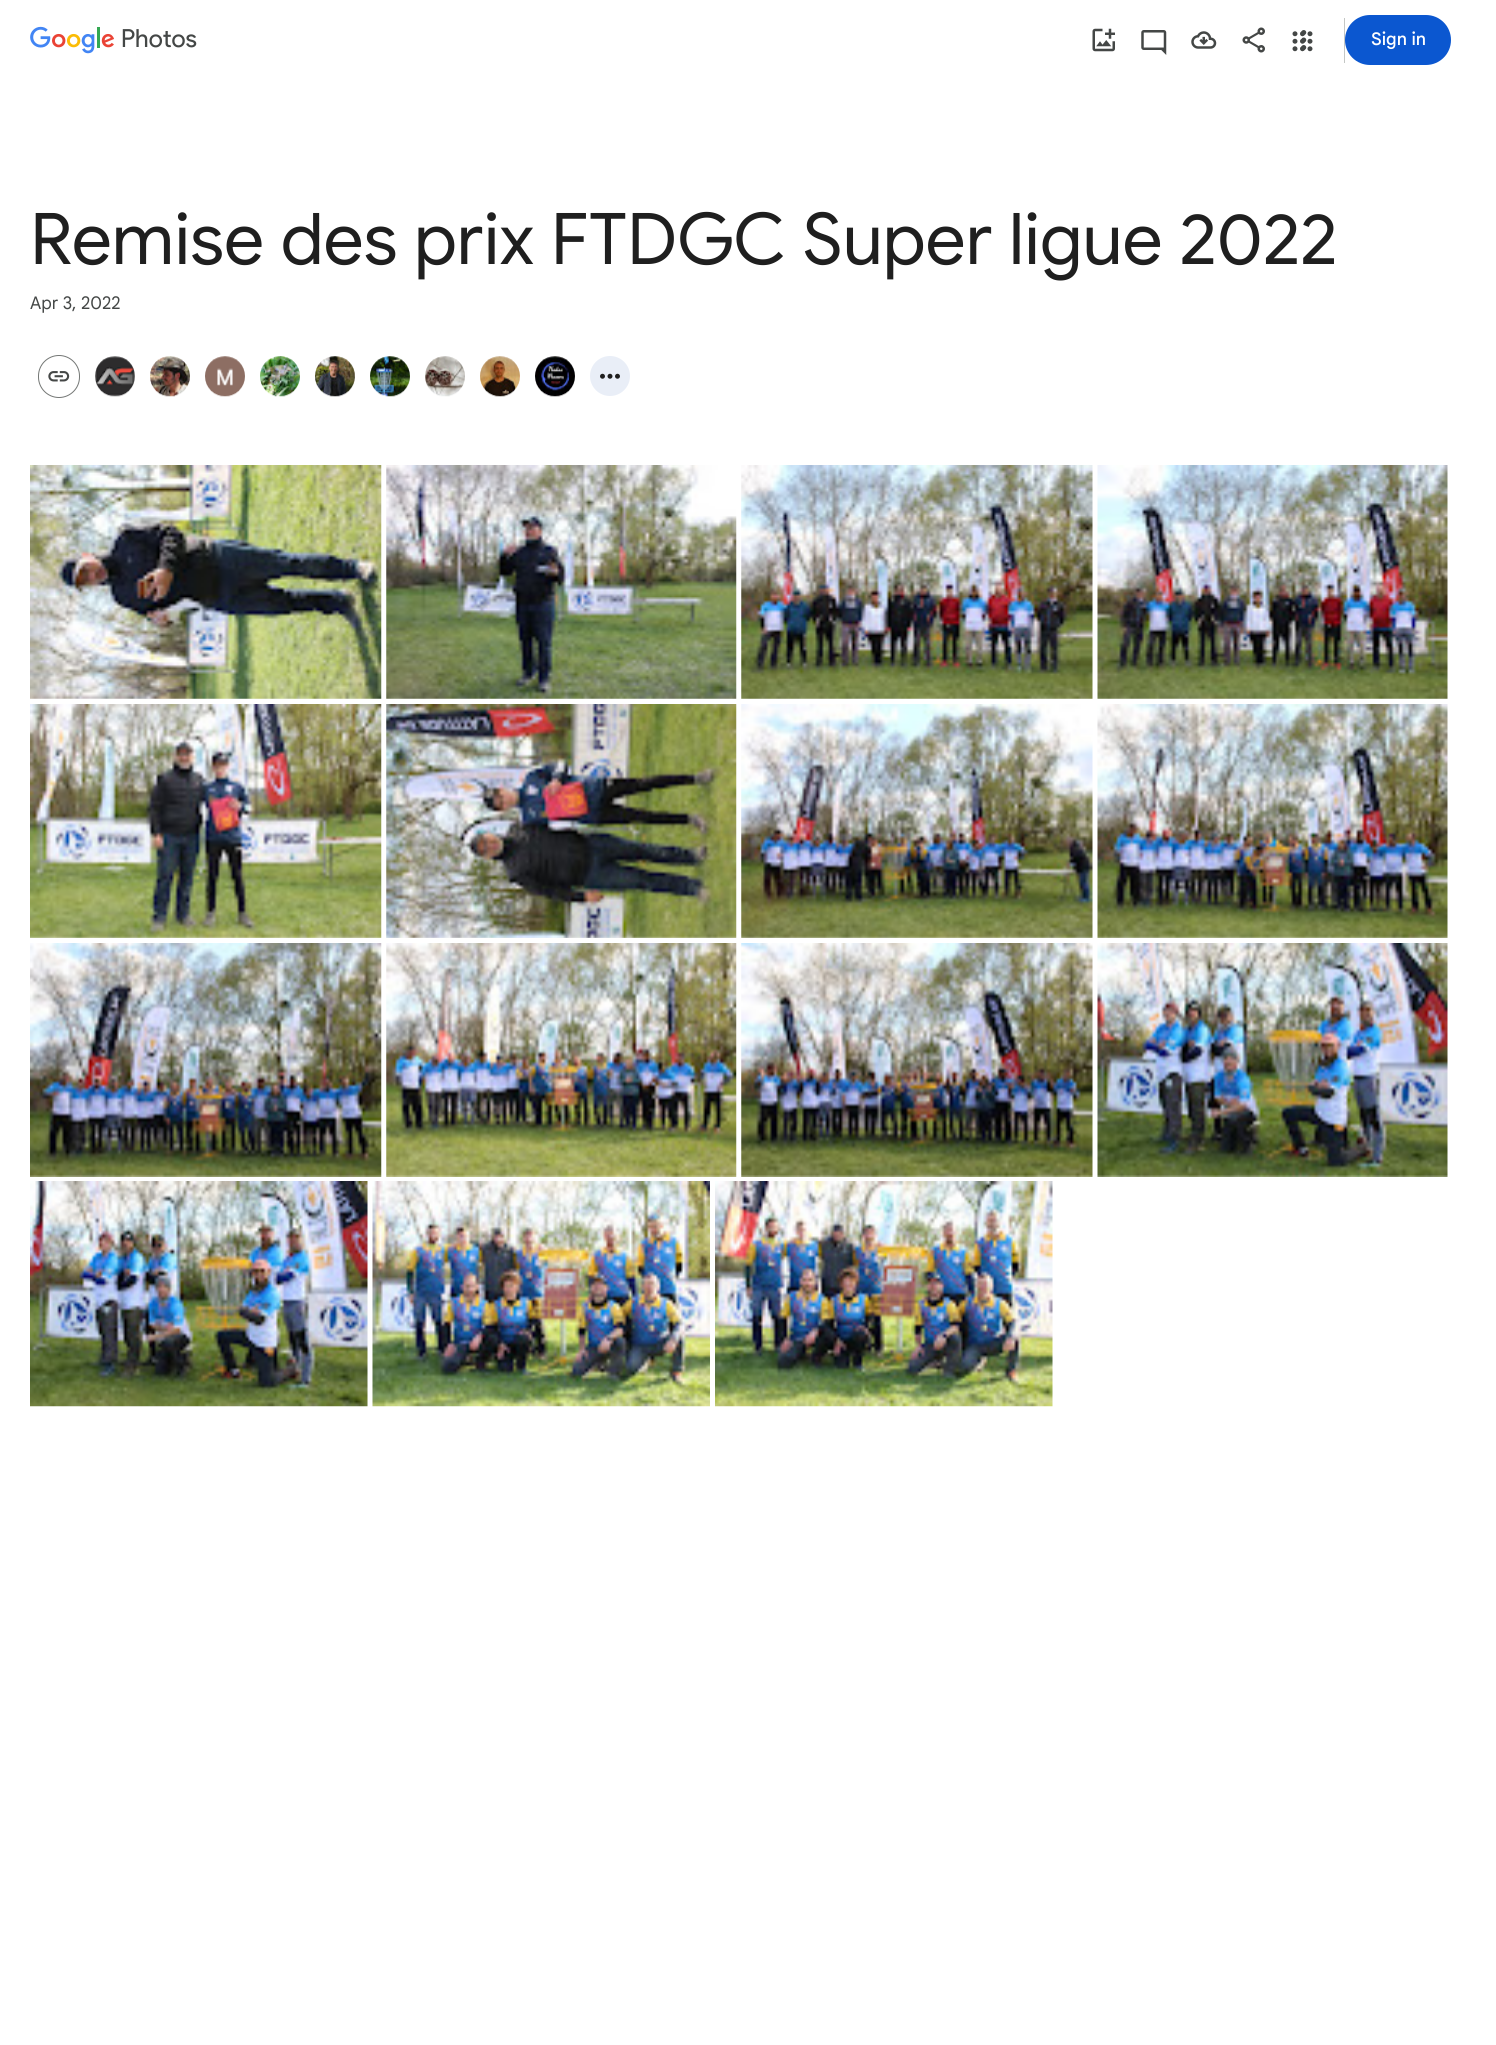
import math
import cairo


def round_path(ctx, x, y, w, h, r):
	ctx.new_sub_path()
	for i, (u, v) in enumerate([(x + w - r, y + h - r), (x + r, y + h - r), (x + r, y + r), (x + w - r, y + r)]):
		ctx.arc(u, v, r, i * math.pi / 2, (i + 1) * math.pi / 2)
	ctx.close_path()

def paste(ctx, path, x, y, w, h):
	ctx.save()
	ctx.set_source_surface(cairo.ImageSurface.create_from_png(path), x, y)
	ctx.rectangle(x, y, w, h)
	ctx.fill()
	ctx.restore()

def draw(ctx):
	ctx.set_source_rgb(1, 1, 1)
	ctx.paint()
	paste(ctx, 'media/1.png', 30, 26, 84, 28)
	ctx.select_font_face('Product Sans')
	ctx.set_font_size(25)
	ctx.set_source_rgb(0.267, 0.278, 0.275)
	ctx.move_to(121, 47)
	ctx.show_text('Photos')
	paste(ctx, 'media/2.png', 1092, 28, 23, 24)
	paste(ctx, 'media/3.png', 1141, 30, 26, 25)
	paste(ctx, 'media/4.png', 1191, 31, 26, 18)
	paste(ctx, 'media/5.png', 1242, 27, 23, 26)
	paste(ctx, 'media/6.png', 1301, 30, 6, 20)
	ctx.set_source_rgb(0.769, 0.78, 0.773)
	ctx.rectangle(1344, 18, 1, 45)
	ctx.fill()
	ctx.select_font_face('Google Sans')
	ctx.set_font_size(71.25)
	ctx.set_source_rgb(0.122, 0.122, 0.122)
	ctx.move_to(30, 264)
	ctx.show_text('Remise des prix FTDGC Super ligue 2022')
	ctx.select_font_face('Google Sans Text')
	ctx.set_font_size(17.5)
	ctx.set_source_rgb(0.267, 0.278, 0.275)
	ctx.move_to(30, 309)
	ctx.show_text('Apr 3, 2022')
	round_path(ctx, 38.5, 355.5, 41, 42, 20.5)
	ctx.set_source_rgb(0.455, 0.467, 0.459)
	ctx.set_line_width(1)
	ctx.stroke()
	paste(ctx, 'media/7.png', 48, 371, 22, 11)
	paste(ctx, 'media/8.png', 95, 356, 40, 41)
	paste(ctx, 'media/9.png', 150, 356, 40, 41)
	paste(ctx, 'media/10.png', 205, 356, 40, 41)
	paste(ctx, 'media/11.png', 260, 356, 40, 41)
	paste(ctx, 'media/12.png', 315, 356, 40, 41)
	paste(ctx, 'media/13.png', 370, 356, 40, 41)
	paste(ctx, 'media/14.png', 425, 356, 40, 41)
	paste(ctx, 'media/15.png', 480, 356, 40, 41)
	paste(ctx, 'media/16.png', 535, 356, 40, 41)
	ctx.set_source_rgb(0.914, 0.933, 0.965)
	ctx.arc(610, 376, 20, 0, 2 * math.pi)
	ctx.fill()
	paste(ctx, 'media/17.png', 600, 373, 20, 6)
	paste(ctx, 'media/18.png', 30, 465, 352, 234)
	paste(ctx, 'media/19.png', 386, 465, 351, 234)
	paste(ctx, 'media/20.png', 741, 465, 352, 234)
	paste(ctx, 'media/21.png', 1097, 465, 351, 234)
	paste(ctx, 'media/22.png', 30, 704, 352, 234)
	paste(ctx, 'media/23.png', 386, 704, 351, 234)
	paste(ctx, 'media/24.png', 741, 704, 352, 234)
	paste(ctx, 'media/25.png', 1097, 704, 351, 234)
	paste(ctx, 'media/26.png', 30, 943, 352, 234)
	paste(ctx, 'media/27.png', 386, 943, 351, 234)
	paste(ctx, 'media/28.png', 741, 943, 352, 234)
	paste(ctx, 'media/29.png', 1097, 943, 351, 234)
	paste(ctx, 'media/30.png', 30, 1181, 338, 226)
	paste(ctx, 'media/31.png', 372, 1181, 338, 226)
	paste(ctx, 'media/32.png', 715, 1181, 338, 226)
	paste(ctx, 'media/33.png', 1292, 31, 21, 21)
	ctx.set_source_rgb(0.043, 0.341, 0.816)
	round_path(ctx, 1345, 15, 106, 50, 25)
	ctx.fill()
	ctx.select_font_face('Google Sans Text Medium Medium')
	ctx.set_source_rgb(1, 1, 1)
	ctx.move_to(1371, 45)
	ctx.show_text('Sign in')


surface = cairo.ImageSurface(cairo.FORMAT_RGB24, 1496, 2045)
ctx = cairo.Context(surface)
options = cairo.FontOptions()
options.set_hint_metrics(cairo.HINT_METRICS_OFF)
options.set_hint_style(cairo.HINT_STYLE_NONE)
ctx.set_font_options(options)
ctx.set_miter_limit(4)
draw(ctx)
surface.write_to_png('image.png')
